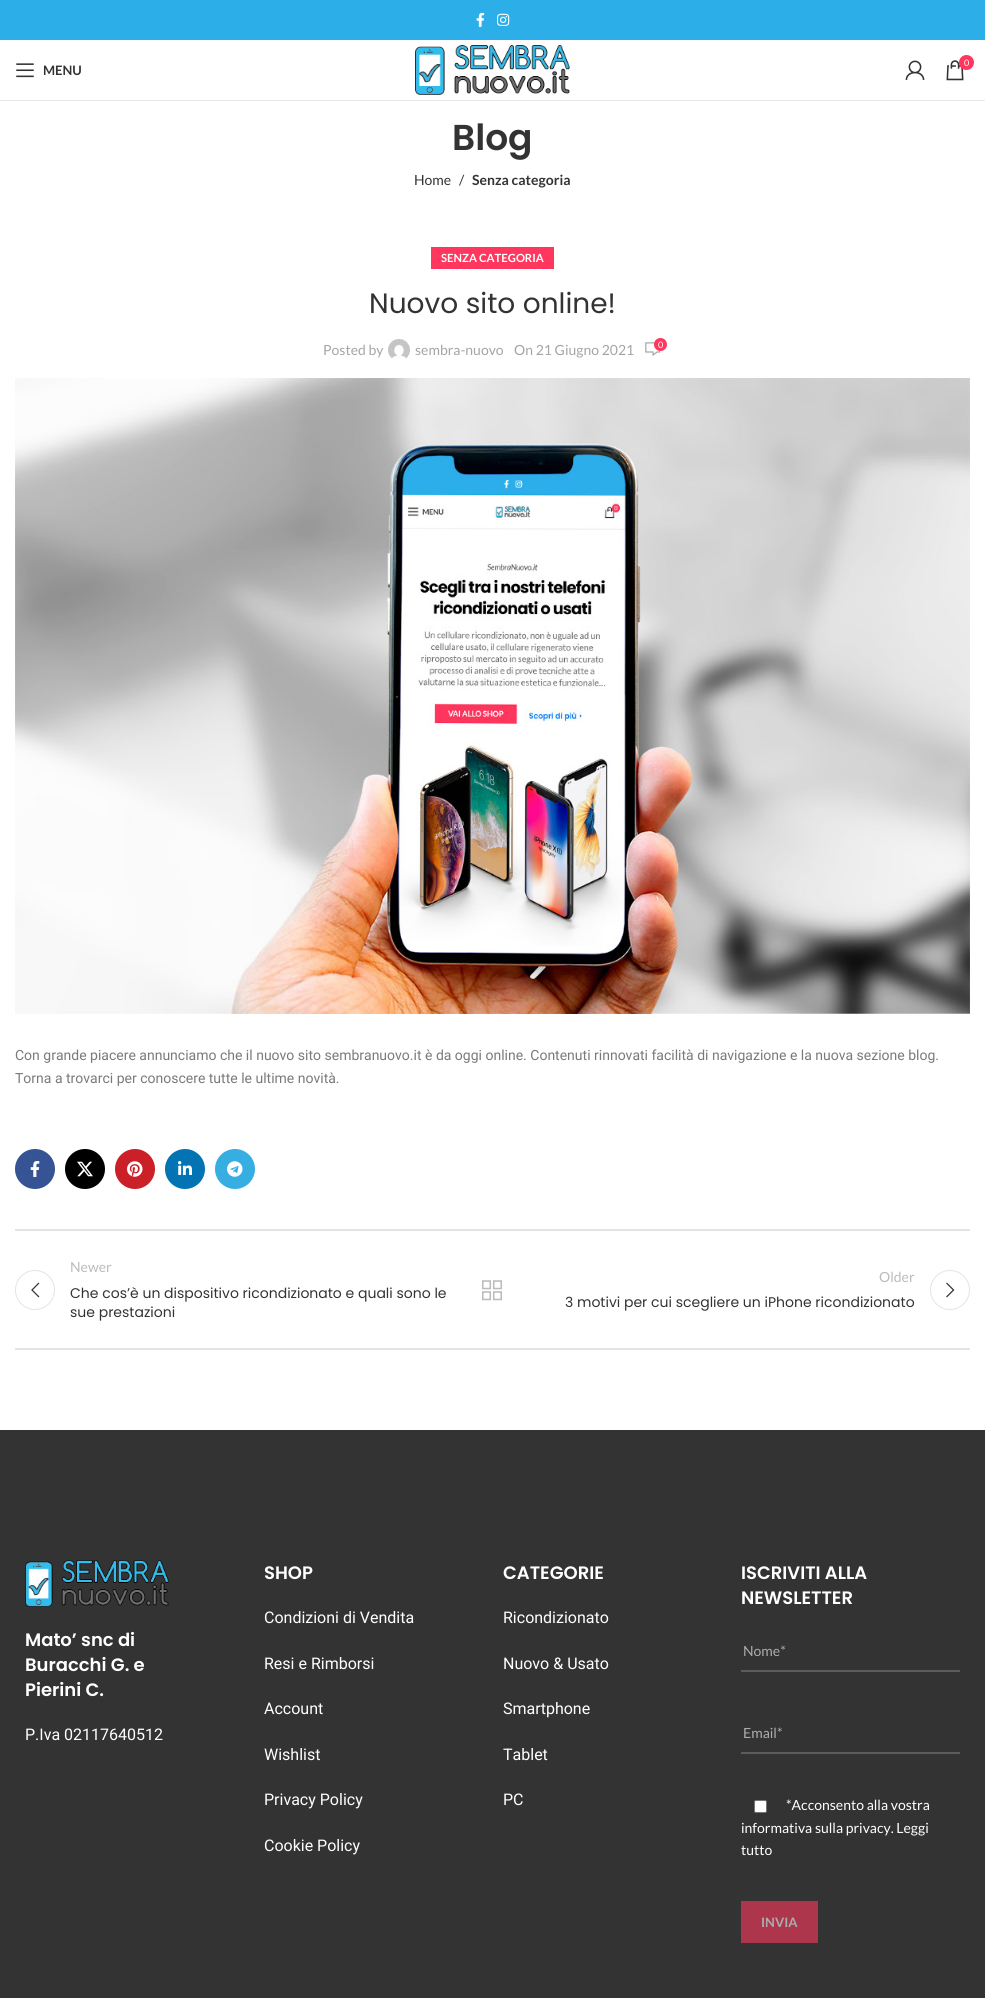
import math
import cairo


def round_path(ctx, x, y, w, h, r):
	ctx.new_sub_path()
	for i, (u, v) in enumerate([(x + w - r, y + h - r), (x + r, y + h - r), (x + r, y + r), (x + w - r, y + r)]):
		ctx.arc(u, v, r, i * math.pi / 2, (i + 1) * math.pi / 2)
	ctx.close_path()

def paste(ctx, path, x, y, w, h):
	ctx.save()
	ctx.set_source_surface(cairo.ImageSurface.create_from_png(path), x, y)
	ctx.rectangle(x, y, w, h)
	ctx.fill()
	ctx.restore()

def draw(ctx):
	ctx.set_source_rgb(1, 1, 1)
	ctx.paint()
	ctx.set_source_rgb(0.173, 0.682, 0.914)
	ctx.rectangle(0, 0, 985, 40)
	ctx.fill()
	paste(ctx, 'media/1.png', 476, 12, 9, 15)
	paste(ctx, 'media/2.png', 497, 13, 13, 13)
	ctx.set_source_rgb(0.902, 0.902, 0.902)
	ctx.rectangle(0, 100, 985, 1)
	ctx.fill()
	paste(ctx, 'media/3.png', 415, 45, 155, 50)
	paste(ctx, 'media/4.png', 905, 60, 20, 20)
	paste(ctx, 'media/5.png', 946, 60, 18, 21)
	ctx.set_source_rgb(1, 0.212, 0.365)
	ctx.arc(966.5, 62.5, 7.5, 0, 2 * math.pi)
	ctx.fill()
	ctx.select_font_face('Lato')
	ctx.set_font_size(9)
	ctx.set_source_rgb(1, 1, 1)
	ctx.move_to(964, 66)
	ctx.show_text('0')
	paste(ctx, 'media/6.png', 16, 63, 18, 15)
	ctx.select_font_face('Lato', cairo.FONT_SLANT_NORMAL, cairo.FONT_WEIGHT_BOLD)
	ctx.set_font_size(13)
	ctx.set_source_rgb(0.2, 0.2, 0.2)
	ctx.move_to(43, 75)
	ctx.show_text('MENU')
	ctx.select_font_face('Poppins SemiBold')
	ctx.set_font_size(36)
	ctx.move_to(452, 150)
	ctx.show_text('Blog')
	ctx.select_font_face('Lato')
	ctx.set_font_size(14)
	ctx.move_to(414, 185)
	ctx.show_text('Home')
	ctx.move_to(459, 185)
	ctx.show_text('/')
	ctx.select_font_face('Lato', cairo.FONT_SLANT_NORMAL, cairo.FONT_WEIGHT_BOLD)
	ctx.move_to(472, 185)
	ctx.show_text('Senza categoria')
	ctx.set_source_rgb(1, 0.212, 0.365)
	ctx.rectangle(431, 247, 123, 22)
	ctx.fill()
	ctx.set_font_size(11.25)
	ctx.set_source_rgb(1, 1, 1)
	ctx.move_to(441, 262)
	ctx.show_text('SENZA CATEGORIA')
	ctx.select_font_face('Poppins')
	ctx.set_font_size(28)
	ctx.set_source_rgb(0.2, 0.2, 0.2)
	ctx.move_to(369, 313)
	ctx.show_text('Nuovo sito online!')
	ctx.select_font_face('Lato')
	ctx.set_font_size(14)
	ctx.set_source_rgb(0.647, 0.647, 0.647)
	ctx.move_to(323, 355)
	ctx.show_text('Posted by')
	paste(ctx, 'media/7.png', 388, 339, 22, 22)
	ctx.move_to(415, 355)
	ctx.show_text('sembra-nuovo')
	ctx.move_to(514, 355)
	ctx.show_text('On 21 Giugno 2021')
	paste(ctx, 'media/8.png', 645, 342, 16, 14)
	ctx.set_source_rgb(1, 0.212, 0.365)
	ctx.arc(660.5, 344.5, 6.5, 0, 2 * math.pi)
	ctx.fill()
	ctx.set_font_size(9)
	ctx.set_source_rgb(1, 1, 1)
	ctx.move_to(658, 348)
	ctx.show_text('0')
	paste(ctx, 'media/9.png', 15, 378, 955, 636)
	ctx.select_font_face('Roboto')
	ctx.set_font_size(14)
	ctx.set_source_rgb(0.478, 0.478, 0.478)
	ctx.move_to(15, 1060)
	ctx.show_text('Con grande piacere annunciamo che il nuovo sito sembranuovo.it è da oggi online. Contenuti rinnovati facilità di navigazione e la nuova sezione blog.')
	ctx.move_to(15, 1083)
	ctx.show_text('Torna a trovarci per conoscere tutte le ultime novità.')
	ctx.set_source_rgb(0.212, 0.329, 0.576)
	ctx.new_path()
	ctx.arc(35, 1169, 20, 0, 2 * math.pi)
	ctx.fill()
	paste(ctx, 'media/10.png', 30, 1161, 10, 16)
	ctx.set_source_rgb(0, 0, 0)
	ctx.arc(85, 1169, 20, 0, 2 * math.pi)
	ctx.fill()
	paste(ctx, 'media/11.png', 77, 1161, 16, 16)
	ctx.set_source_rgb(0.796, 0.125, 0.153)
	ctx.arc(135, 1169, 20, 0, 2 * math.pi)
	ctx.fill()
	paste(ctx, 'media/12.png', 127, 1161, 16, 16)
	ctx.set_source_rgb(0.008, 0.455, 0.702)
	ctx.arc(185, 1169, 20, 0, 2 * math.pi)
	ctx.fill()
	paste(ctx, 'media/13.png', 178, 1161, 14, 14)
	ctx.set_source_rgb(0.216, 0.682, 0.886)
	ctx.arc(235, 1169, 20, 0, 2 * math.pi)
	ctx.fill()
	paste(ctx, 'media/14.png', 227, 1161, 16, 16)
	ctx.set_source_rgb(0.894, 0.894, 0.894)
	ctx.rectangle(15, 1229, 955, 2)
	ctx.fill()
	ctx.rectangle(15, 1348, 955, 2)
	ctx.fill()
	ctx.select_font_face('Lato')
	ctx.set_source_rgb(0.733, 0.733, 0.733)
	ctx.move_to(70, 1272)
	ctx.show_text('Newer')
	ctx.new_path()
	ctx.arc(35, 1290, 19.5, 0, 2 * math.pi)
	ctx.set_source_rgb(0.894, 0.894, 0.894)
	ctx.set_line_width(1)
	ctx.stroke()
	paste(ctx, 'media/15.png', 31, 1282, 9, 16)
	ctx.select_font_face('Poppins')
	ctx.set_source_rgb(0.2, 0.2, 0.2)
	ctx.move_to(70, 1298)
	ctx.show_text('Che cos’è un dispositivo ricondizionato e quali sono le')
	ctx.move_to(70, 1317)
	ctx.show_text('sue prestazioni')
	paste(ctx, 'media/16.png', 482, 1280, 20, 21)
	ctx.select_font_face('Lato')
	ctx.set_source_rgb(0.733, 0.733, 0.733)
	ctx.move_to(879, 1282)
	ctx.show_text('Older')
	ctx.new_path()
	ctx.arc(950, 1290, 19.5, 0, 2 * math.pi)
	ctx.set_source_rgb(0.894, 0.894, 0.894)
	ctx.stroke()
	paste(ctx, 'media/17.png', 946, 1282, 9, 16)
	ctx.select_font_face('Poppins')
	ctx.set_source_rgb(0.2, 0.2, 0.2)
	ctx.move_to(565, 1307)
	ctx.show_text('3 motivi per cui scegliere un iPhone ricondizionato')
	ctx.rectangle(0, 1430, 985, 568)
	ctx.fill()
	paste(ctx, 'media/18.png', 25, 1560, 144, 47)
	ctx.select_font_face('Poppins SemiBold')
	ctx.set_font_size(18)
	ctx.set_source_rgb(1, 1, 1)
	for x, y, s in [
		(25, 1646, 'Mato’ snc di'),
		(25, 1671, 'Buracchi G. e'),
		(25, 1696, 'Pierini C.'),
	]:
		ctx.move_to(x, y)
		ctx.show_text(s)
	ctx.select_font_face('Roboto')
	ctx.set_font_size(16)
	ctx.move_to(25, 1740)
	ctx.show_text('P.Iva 02117640512')
	ctx.select_font_face('Poppins SemiBold')
	ctx.set_font_size(18)
	ctx.move_to(264, 1579)
	ctx.show_text('SHOP')
	ctx.select_font_face('Roboto')
	ctx.set_font_size(16)
	for x, y, s in [
		(264, 1623, 'Condizioni di Vendita'),
		(264, 1669, 'Resi e Rimborsi'),
		(264, 1714, 'Account'),
		(264, 1760, 'Wishlist'),
		(264, 1805, 'Privacy Policy'),
		(264, 1851, 'Cookie Policy'),
	]:
		ctx.move_to(x, y)
		ctx.show_text(s)
	ctx.select_font_face('Poppins SemiBold')
	ctx.set_font_size(18)
	ctx.move_to(503, 1579)
	ctx.show_text('CATEGORIE')
	ctx.select_font_face('Roboto')
	ctx.set_font_size(16)
	for x, y, s in [
		(503, 1623, 'Ricondizionato'),
		(503, 1669, 'Nuovo & Usato'),
		(503, 1714, 'Smartphone'),
		(503, 1760, 'Tablet'),
		(503, 1805, 'PC'),
	]:
		ctx.move_to(x, y)
		ctx.show_text(s)
	ctx.select_font_face('Poppins SemiBold')
	ctx.set_font_size(18)
	ctx.move_to(741, 1579)
	ctx.show_text('ISCRIVITI ALLA')
	ctx.move_to(741, 1604)
	ctx.show_text('NEWSLETTER')
	ctx.set_source_rgb(0.361, 0.361, 0.361)
	ctx.rectangle(741, 1670, 219, 2)
	ctx.fill()
	ctx.select_font_face('Lato')
	ctx.set_font_size(14)
	ctx.set_source_rgb(0.678, 0.678, 0.678)
	ctx.move_to(743, 1656)
	ctx.show_text('Nome*')
	ctx.set_source_rgb(0.361, 0.361, 0.361)
	ctx.rectangle(741, 1752, 219, 2)
	ctx.fill()
	ctx.set_source_rgb(0.678, 0.678, 0.678)
	ctx.move_to(743, 1738)
	ctx.show_text('Email*')
	ctx.set_source_rgb(1, 1, 1)
	round_path(ctx, 754.5, 1800.5, 12, 12, 1.5)
	ctx.fill_preserve()
	ctx.set_source_rgb(0.463, 0.463, 0.463)
	ctx.stroke()
	ctx.set_source_rgb(1, 1, 1)
	for x, y, s in [
		(786, 1810, '*Acconsento alla vostra'),
		(741, 1833, 'informativa sulla privacy. Leggi'),
		(741, 1855, 'tutto'),
	]:
		ctx.move_to(x, y)
		ctx.show_text(s)
	ctx.set_source_rgb(0.678, 0.208, 0.298)
	ctx.rectangle(741, 1901, 77, 42)
	ctx.fill()
	ctx.select_font_face('Lato', cairo.FONT_SLANT_NORMAL, cairo.FONT_WEIGHT_BOLD)
	ctx.set_font_size(13)
	ctx.set_source_rgb(0.678, 0.678, 0.678)
	ctx.move_to(761, 1927)
	ctx.show_text('INVIA')


surface = cairo.ImageSurface(cairo.FORMAT_RGB24, 985, 1998)
ctx = cairo.Context(surface)
options = cairo.FontOptions()
options.set_hint_metrics(cairo.HINT_METRICS_OFF)
options.set_hint_style(cairo.HINT_STYLE_NONE)
ctx.set_font_options(options)
ctx.set_miter_limit(4)
draw(ctx)
surface.write_to_png('image.png')
